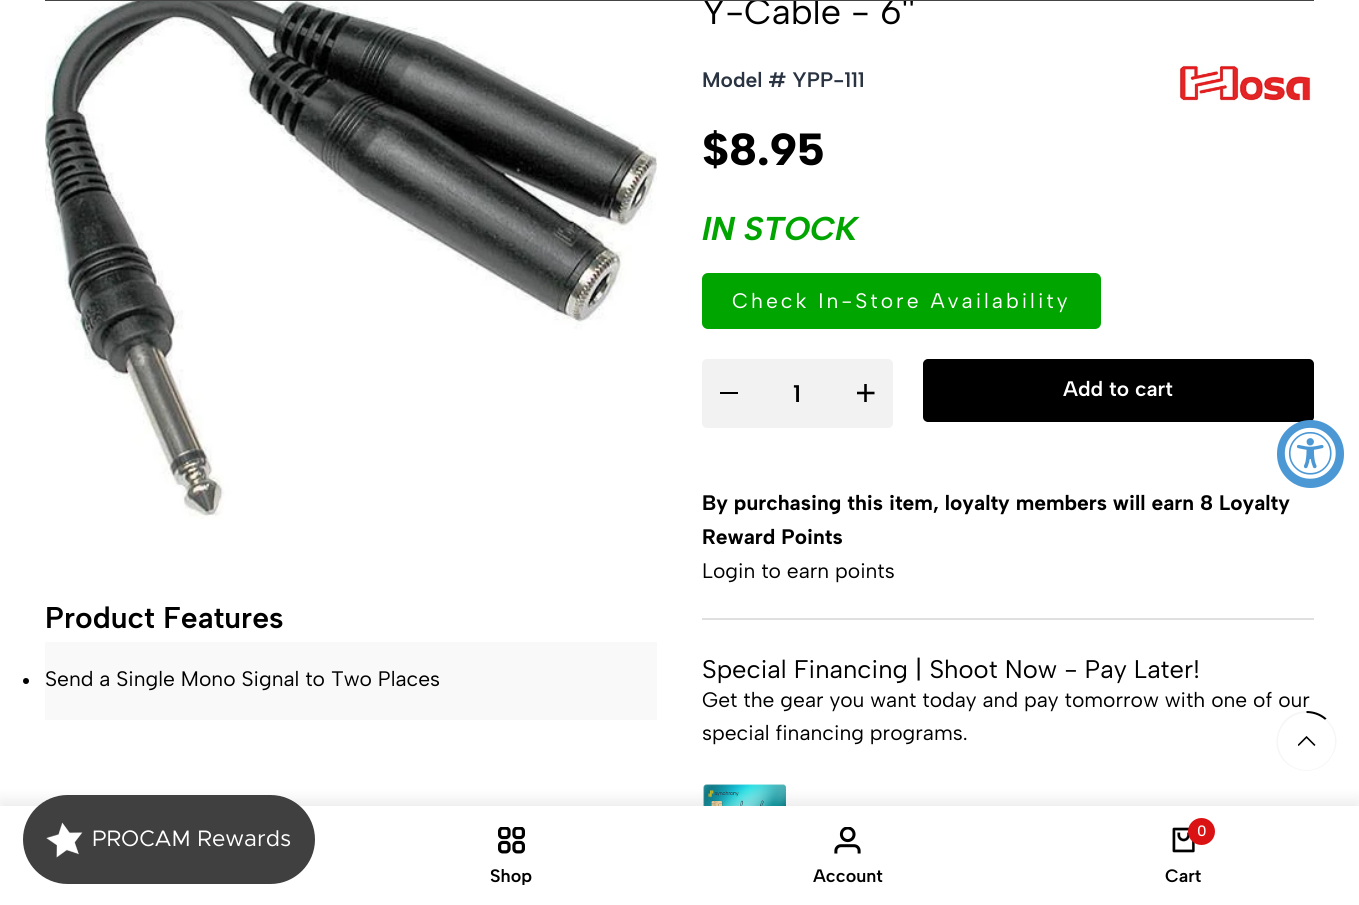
import math
import cairo


def write_spaced(ctx, x, y, s, letter, word):
	ctx.move_to(x, y)
	for ch in s:
		ctx.show_text(ch)
		ctx.rel_move_to(letter + word * (ch == ' '), 0)

def round_path(ctx, x, y, w, h, r):
	ctx.new_sub_path()
	for i, (u, v) in enumerate([(x + w - r, y + h - r), (x + r, y + h - r), (x + r, y + r), (x + w - r, y + r)]):
		ctx.arc(u, v, r, i * math.pi / 2, (i + 1) * math.pi / 2)
	ctx.close_path()

def blur_box(ctx, x, y, w, h, r, blur, alpha):
	ctx.push_group_with_content(cairo.CONTENT_ALPHA)
	ctx.set_operator(cairo.OPERATOR_SOURCE)
	for i in range(15, -16, -2):
		e = blur * i / 6
		if min(w, h) + 2 * e > 0:
			ctx.set_source_rgba(0, 0, 0, alpha * math.erfc((i - 1) / 8.5) / 2)
			round_path(ctx, x - e, y - e, w + 2 * e, h + 2 * e, max(0, min(r + e + blur * .6, min(w, h) / 2 + e)))
			ctx.fill()
	ctx.mask(ctx.pop_group())

def paste(ctx, path, x, y, w, h):
	ctx.save()
	ctx.set_source_surface(cairo.ImageSurface.create_from_png(path), x, y)
	ctx.rectangle(x, y, w, h)
	ctx.fill()
	ctx.restore()

def draw(ctx):
	ctx.set_source_rgb(1, 1, 1)
	ctx.paint()
	ctx.select_font_face('Albert Sans')
	ctx.set_font_size(36)
	ctx.set_source_rgb(0, 0, 0)
	ctx.move_to(702, 24)
	ctx.show_text('Y-Cable - 6\'\'')
	ctx.set_source_rgb(0.267, 0.267, 0.267)
	ctx.rectangle(45, 0, 1269, 1)
	ctx.fill()
	paste(ctx, 'media/1.png', 45, 1, 612, 518)
	ctx.select_font_face('Albert Sans SemiBold')
	ctx.set_font_size(30)
	ctx.set_source_rgb(0, 0, 0)
	ctx.move_to(45, 628)
	ctx.show_text('Product Features')
	ctx.set_source_rgb(0.976, 0.976, 0.976)
	ctx.rectangle(45, 642, 612, 78)
	ctx.fill()
	ctx.set_source_rgb(0, 0, 0)
	ctx.arc(26, 681, 3, 0, 2 * math.pi)
	ctx.fill()
	ctx.select_font_face('Albert Sans')
	ctx.set_font_size(21)
	ctx.move_to(45, 686)
	ctx.show_text('Send a Single Mono Signal to Two Places')
	ctx.select_font_face('Albert Sans SemiBold')
	ctx.set_source_rgb(0.161, 0.2, 0.255)
	ctx.move_to(702, 87)
	ctx.show_text('Model # YPP-111')
	paste(ctx, 'media/2.png', 1176, 64, 137, 38)
	ctx.select_font_face('Albert Sans ExtraBold')
	ctx.set_font_size(45)
	ctx.set_source_rgb(0, 0, 0)
	ctx.move_to(702, 165)
	ctx.show_text('$8.95')
	ctx.select_font_face('Albert Sans', cairo.FONT_SLANT_ITALIC, cairo.FONT_WEIGHT_BOLD)
	ctx.set_font_size(33)
	ctx.set_source_rgb(0, 0.647, 0)
	ctx.move_to(702, 240)
	ctx.show_text('IN STOCK')
	round_path(ctx, 702, 273, 399, 56, 6)
	ctx.fill()
	ctx.select_font_face('Albert Sans')
	ctx.set_font_size(21)
	ctx.set_source_rgb(1, 1, 1)
	write_spaced(ctx, 732, 308, 'Check In-Store Availability', 3, 0)
	ctx.set_source_rgb(0.949, 0.949, 0.949)
	round_path(ctx, 702, 359, 191, 69, 5)
	ctx.fill()
	ctx.set_source_rgb(0, 0, 0)
	ctx.rectangle(720, 392, 18, 2)
	ctx.fill()
	ctx.select_font_face('Albert Sans SemiBold')
	ctx.set_font_size(24)
	ctx.move_to(793, 402)
	ctx.show_text('1')
	paste(ctx, 'media/3.png', 857, 384, 18, 18)
	round_path(ctx, 924, 360, 389, 61, 4)
	ctx.fill_preserve()
	ctx.stroke()
	ctx.set_font_size(21)
	ctx.set_source_rgb(1, 1, 1)
	ctx.move_to(1063, 396)
	ctx.show_text('Add to cart')
	ctx.select_font_face('Albert Sans', cairo.FONT_SLANT_NORMAL, cairo.FONT_WEIGHT_BOLD)
	ctx.set_source_rgb(0, 0, 0)
	ctx.move_to(702, 510)
	ctx.show_text('By purchasing this item, loyalty members will earn 8 Loyalty')
	ctx.move_to(702, 544)
	ctx.show_text('Reward Points')
	ctx.select_font_face('Albert Sans')
	ctx.move_to(702, 578)
	ctx.show_text('Login to earn points')
	ctx.set_source_rgb(0.878, 0.878, 0.878)
	ctx.rectangle(702, 618, 612, 2)
	ctx.fill()
	ctx.set_font_size(25.5)
	ctx.set_source_rgb(0, 0, 0)
	ctx.move_to(702, 678)
	ctx.show_text('Special Financing | Shoot Now - Pay Later!')
	ctx.set_font_size(21)
	ctx.move_to(702, 707)
	ctx.show_text('Get the gear you want today and pay tomorrow with one of our')
	ctx.move_to(702, 740)
	ctx.show_text('special financing programs.')
	paste(ctx, 'media/4.png', 703, 784, 83, 22)
	ctx.set_source_rgb(0.298, 0.596, 0.835)
	round_path(ctx, 1277, 420, 67, 68, 33.5)
	ctx.fill()
	paste(ctx, 'media/5.png', 1284, 427, 52, 52)
	ctx.set_source_rgb(0, 0, 0)
	ctx.new_path()
	ctx.move_to(1306.5, 741)
	ctx.line_to(1306.5, 711)
	ctx.curve_to(1314, 711, 1321, 713.5, 1326.5, 718.5)
	ctx.close_path()
	ctx.fill()
	ctx.set_source_rgb(0.961, 0.961, 0.961)
	ctx.new_path()
	ctx.move_to(1306, 741)
	ctx.line_to(1326, 719)
	ctx.curve_to(1337, 728, 1340, 744, 1332, 756)
	ctx.curve_to(1325, 769, 1309, 774, 1296, 769)
	ctx.curve_to(1282, 764, 1274, 750, 1277, 736)
	ctx.curve_to(1280, 721, 1292, 711, 1306, 711)
	ctx.close_path()
	ctx.fill()
	ctx.set_source_rgb(1, 1, 1)
	ctx.arc(1306.5, 741.5, 28.5, 0, 2 * math.pi)
	ctx.fill()
	paste(ctx, 'media/6.png', 1298, 736, 18, 10)
	ctx.set_source_rgb(0, 0, 0)
	blur_box(ctx, 0, 800, 1359, 100, 0, 7.5, 0.08)
	ctx.set_source_rgb(1, 1, 1)
	ctx.rectangle(0, 806, 1359, 99)
	ctx.fill()
	ctx.set_source_rgb(0.251, 0.251, 0.251)
	round_path(ctx, 23, 795, 292, 89, 44.5)
	ctx.fill()
	paste(ctx, 'media/7.png', 46, 822, 37, 36)
	ctx.select_font_face('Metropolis')
	ctx.set_font_size(22.5)
	ctx.set_source_rgb(1, 1, 1)
	ctx.move_to(92, 846)
	ctx.show_text('PROCAM Rewards')
	paste(ctx, 'media/8.png', 498, 827, 27, 27)
	ctx.save()
	ctx.rectangle(359, 867, 306, 18)
	ctx.clip()
	ctx.select_font_face('Albert Sans SemiBold')
	ctx.set_font_size(18)
	ctx.set_source_rgb(0, 0, 0)
	ctx.move_to(490, 882)
	ctx.show_text('Shop')
	ctx.restore()
	paste(ctx, 'media/9.png', 834, 827, 27, 27)
	ctx.select_font_face('Albert Sans SemiBold')
	ctx.set_font_size(18)
	ctx.set_source_rgb(0, 0, 0)
	ctx.move_to(813, 882)
	ctx.show_text('Account')
	paste(ctx, 'media/10.png', 1172, 827, 23, 26)
	ctx.set_source_rgb(0.859, 0.071, 0.082)
	ctx.arc(1201.5, 831.5, 13.5, 0, 2 * math.pi)
	ctx.fill()
	ctx.select_font_face('Albert Sans Medium')
	ctx.set_font_size(15)
	ctx.set_source_rgb(1, 1, 1)
	ctx.move_to(1197, 836)
	ctx.show_text('0')
	ctx.select_font_face('Albert Sans SemiBold')
	ctx.set_font_size(18)
	ctx.set_source_rgb(0, 0, 0)
	ctx.move_to(1165, 882)
	ctx.show_text('Cart')


surface = cairo.ImageSurface(cairo.FORMAT_RGB24, 1359, 905)
ctx = cairo.Context(surface)
options = cairo.FontOptions()
options.set_hint_metrics(cairo.HINT_METRICS_OFF)
options.set_hint_style(cairo.HINT_STYLE_NONE)
ctx.set_font_options(options)
ctx.set_miter_limit(4)
draw(ctx)
surface.write_to_png('image.png')
